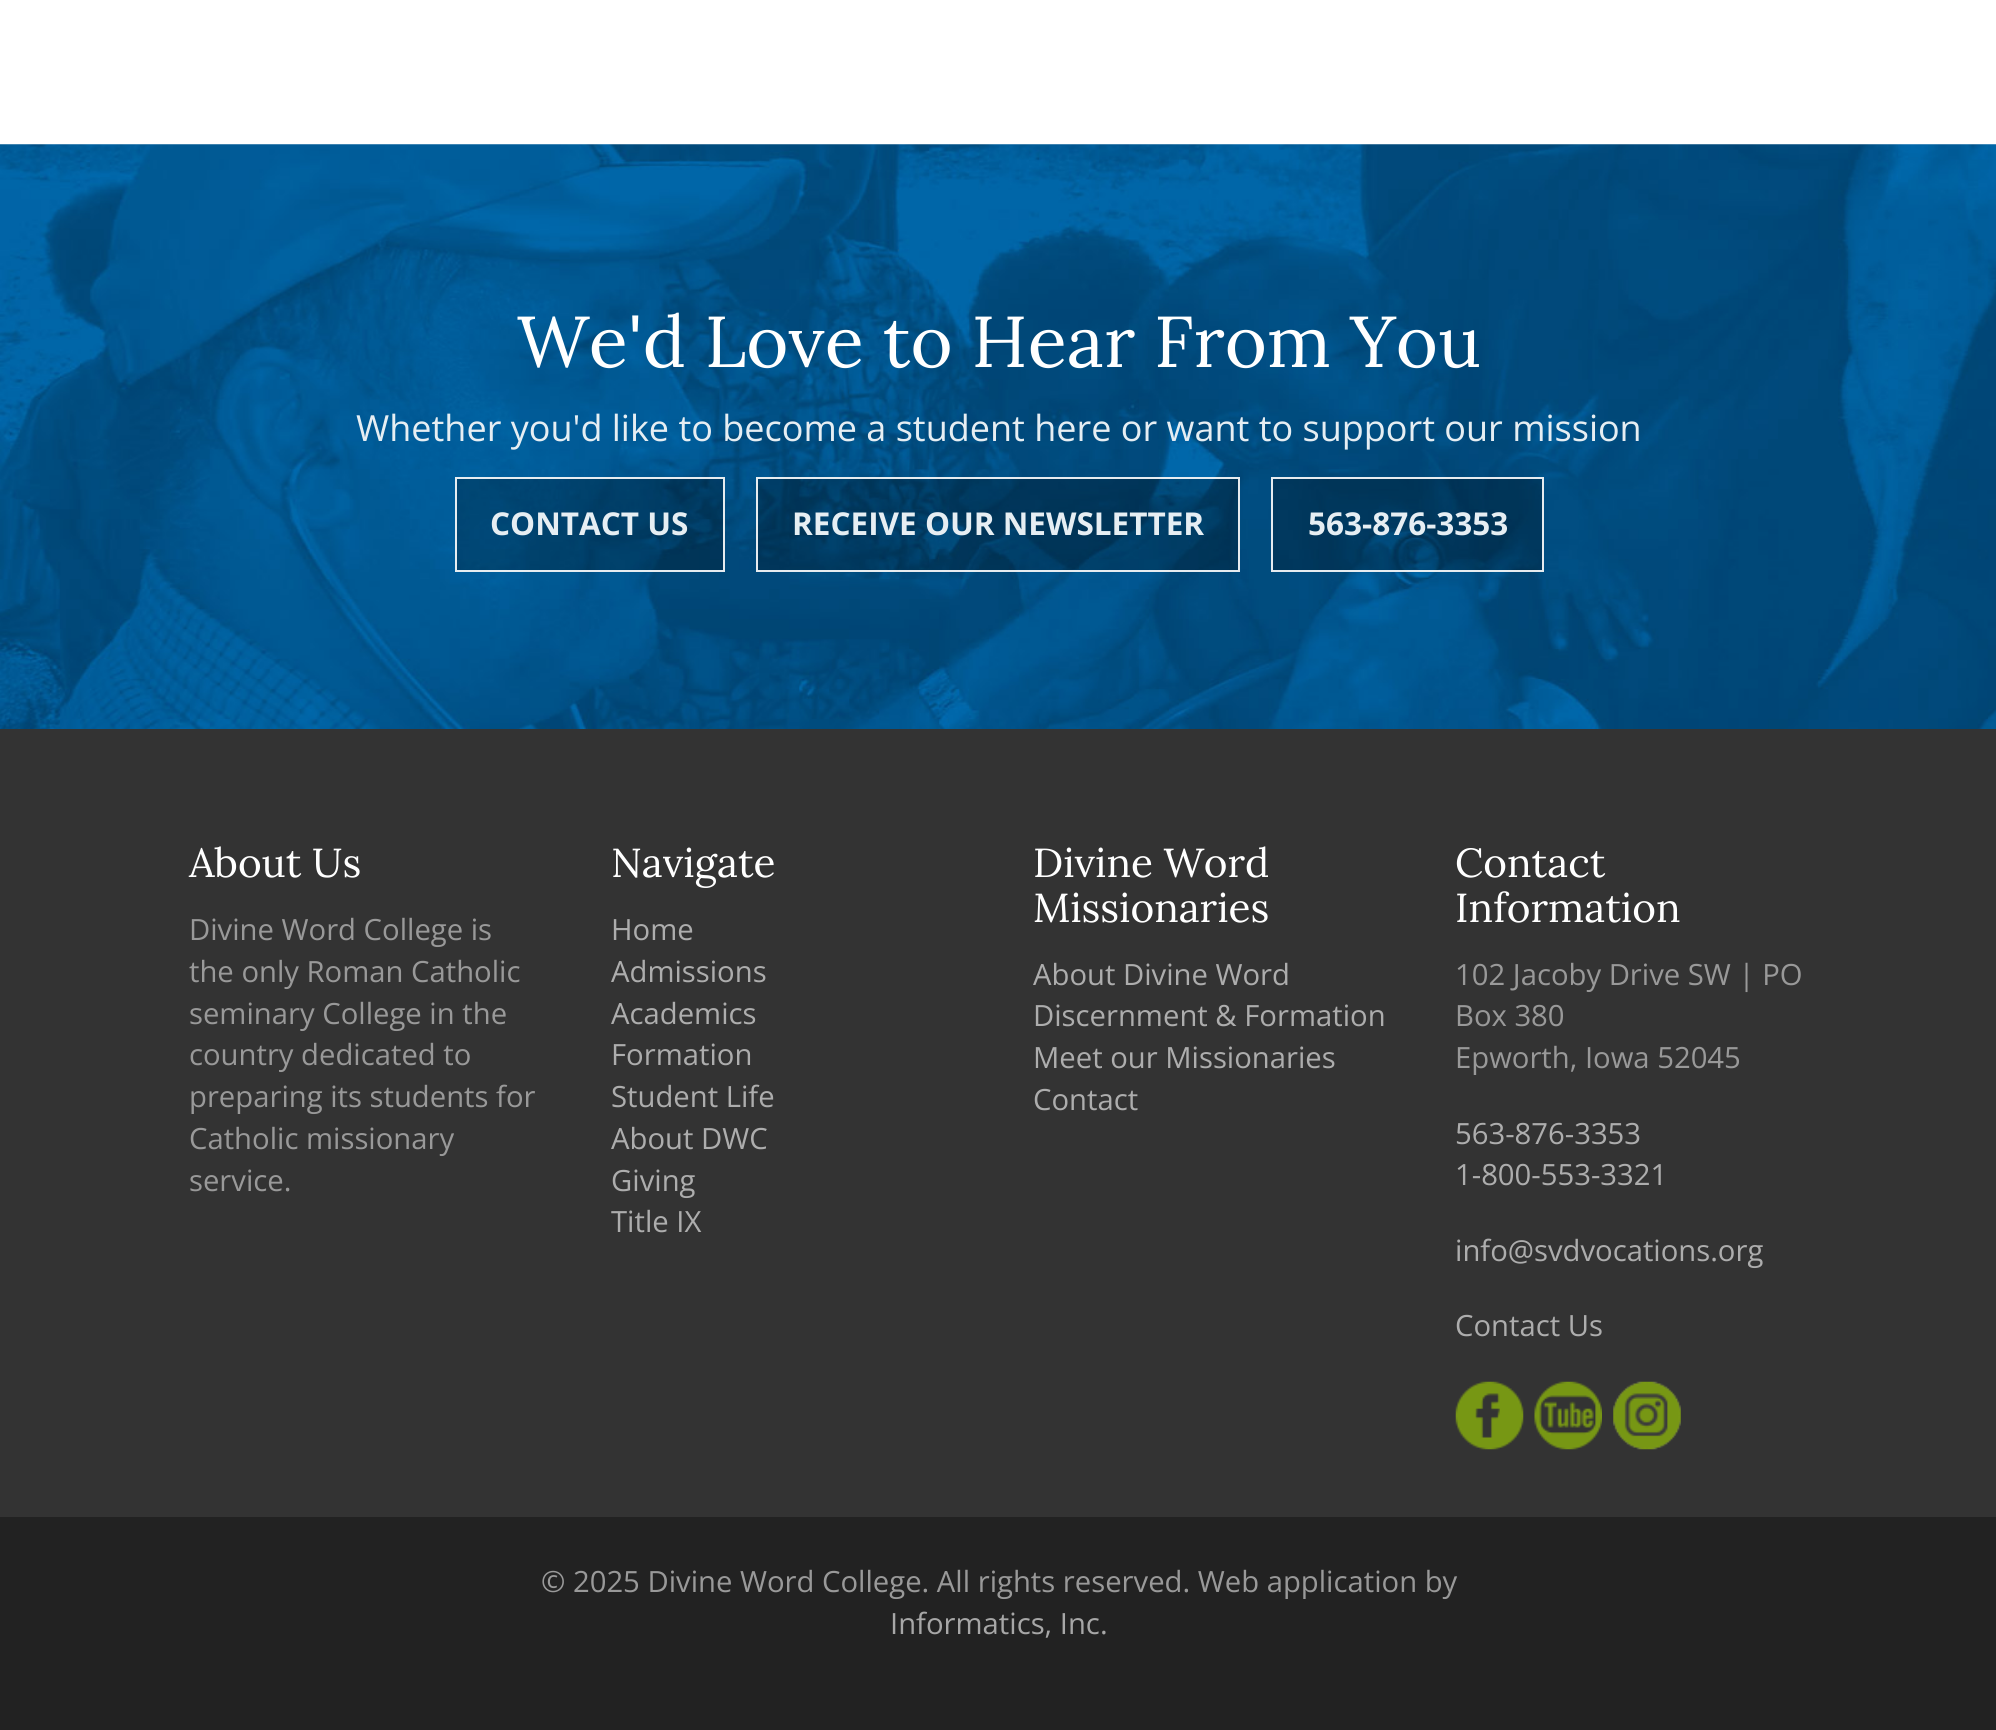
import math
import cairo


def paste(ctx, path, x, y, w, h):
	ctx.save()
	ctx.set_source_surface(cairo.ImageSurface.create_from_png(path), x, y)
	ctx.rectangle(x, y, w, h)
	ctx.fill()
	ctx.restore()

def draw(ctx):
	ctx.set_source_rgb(1, 1, 1)
	ctx.paint()
	paste(ctx, 'media/1.png', 0, 144, 1996, 585)
	ctx.select_font_face('Lora')
	ctx.set_font_size(72)
	ctx.set_source_rgb(1, 1, 1)
	ctx.move_to(517, 367)
	ctx.show_text('We\'d Love to Hear From You')
	ctx.select_font_face('Open Sans')
	ctx.set_font_size(36)
	ctx.set_source_rgb(0.902, 0.933, 0.953)
	ctx.move_to(356, 441)
	ctx.show_text('Whether you\'d like to become a student here or want to support our mission')
	ctx.set_source_rgba(0, 0, 0, 0.27)
	ctx.rectangle(455, 477, 270, 95)
	ctx.fill()
	ctx.rectangle(456, 478, 268, 93)
	ctx.set_source_rgba(1, 1, 1, 0.9)
	ctx.stroke()
	ctx.select_font_face('Open Sans', cairo.FONT_SLANT_NORMAL, cairo.FONT_WEIGHT_BOLD)
	ctx.set_font_size(31.5)
	ctx.set_source_rgb(0.902, 0.933, 0.953)
	ctx.move_to(490, 535)
	ctx.show_text('CONTACT US')
	ctx.set_source_rgba(0, 0, 0, 0.27)
	ctx.rectangle(756, 477, 484, 95)
	ctx.fill()
	ctx.rectangle(757, 478, 482, 93)
	ctx.set_source_rgba(1, 1, 1, 0.9)
	ctx.stroke()
	ctx.set_source_rgb(0.902, 0.933, 0.953)
	ctx.move_to(792, 535)
	ctx.show_text('RECEIVE OUR NEWSLETTER')
	ctx.set_source_rgba(0, 0, 0, 0.27)
	ctx.rectangle(1271, 477, 273, 95)
	ctx.fill()
	ctx.rectangle(1272, 478, 271, 93)
	ctx.set_source_rgba(1, 1, 1, 0.9)
	ctx.stroke()
	ctx.set_source_rgb(0.902, 0.933, 0.953)
	ctx.move_to(1308, 535)
	ctx.show_text('563-876-3353')
	ctx.set_source_rgb(0.2, 0.2, 0.2)
	ctx.rectangle(0, 729, 1996, 788)
	ctx.fill()
	ctx.select_font_face('Lora')
	ctx.set_font_size(40.5)
	ctx.set_source_rgb(1, 1, 1)
	ctx.move_to(189, 877)
	ctx.show_text('About Us')
	ctx.select_font_face('Open Sans')
	ctx.set_font_size(29.25)
	ctx.set_source_rgb(0.6, 0.6, 0.6)
	for x, y, s in [
		(189, 940, 'Divine Word College is'),
		(189, 982, 'the only Roman Catholic'),
		(189, 1024, 'seminary College in the'),
		(189, 1065, 'country dedicated to'),
		(189, 1107, 'preparing its students for'),
		(189, 1149, 'Catholic missionary'),
		(189, 1191, 'service.'),
	]:
		ctx.move_to(x, y)
		ctx.show_text(s)
	ctx.select_font_face('Lora')
	ctx.set_font_size(40.5)
	ctx.set_source_rgb(1, 1, 1)
	ctx.move_to(611, 877)
	ctx.show_text('Navigate')
	ctx.select_font_face('Open Sans')
	ctx.set_font_size(29.25)
	ctx.set_source_rgb(0.678, 0.678, 0.678)
	for x, y, s in [
		(611, 940, 'Home'),
		(611, 982, 'Admissions'),
		(611, 1024, 'Academics'),
		(611, 1065, 'Formation'),
		(611, 1107, 'Student Life'),
		(611, 1149, 'About DWC'),
		(611, 1191, 'Giving'),
		(611, 1232, 'Title IX'),
	]:
		ctx.move_to(x, y)
		ctx.show_text(s)
	ctx.select_font_face('Lora')
	ctx.set_font_size(40.5)
	ctx.set_source_rgb(1, 1, 1)
	ctx.move_to(1033, 877)
	ctx.show_text('Divine Word')
	ctx.move_to(1033, 922)
	ctx.show_text('Missionaries')
	ctx.select_font_face('Open Sans')
	ctx.set_font_size(29.25)
	ctx.set_source_rgb(0.678, 0.678, 0.678)
	for x, y, s in [
		(1033, 985, 'About Divine Word'),
		(1033, 1026, 'Discernment & Formation'),
		(1033, 1068, 'Meet our Missionaries'),
		(1033, 1110, 'Contact'),
	]:
		ctx.move_to(x, y)
		ctx.show_text(s)
	ctx.select_font_face('Lora')
	ctx.set_font_size(40.5)
	ctx.set_source_rgb(1, 1, 1)
	ctx.move_to(1455, 877)
	ctx.show_text('Contact')
	ctx.move_to(1455, 922)
	ctx.show_text('Information')
	ctx.select_font_face('Open Sans')
	ctx.set_font_size(29.25)
	ctx.set_source_rgb(0.6, 0.6, 0.6)
	for x, y, s in [
		(1455, 985, '102 Jacoby Drive SW | PO'),
		(1455, 1026, 'Box 380'),
		(1455, 1068, 'Epworth, Iowa 52045'),
	]:
		ctx.move_to(x, y)
		ctx.show_text(s)
	ctx.set_source_rgb(0.678, 0.678, 0.678)
	for x, y, s in [
		(1455, 1144, '563-876-3353'),
		(1455, 1185, '1-800-553-3321'),
		(1455, 1261, 'info@svdvocations.org'),
		(1455, 1336, 'Contact Us'),
	]:
		ctx.move_to(x, y)
		ctx.show_text(s)
	paste(ctx, 'media/2.png', 1455, 1381, 69, 69)
	paste(ctx, 'media/3.png', 1534, 1381, 68, 69)
	paste(ctx, 'media/4.png', 1613, 1381, 68, 69)
	ctx.set_source_rgb(0.133, 0.133, 0.133)
	ctx.rectangle(0, 1517, 1996, 213)
	ctx.fill()
	ctx.set_source_rgb(0.6, 0.6, 0.6)
	ctx.move_to(541, 1592)
	ctx.show_text('© 2025 Divine Word College. All rights reserved. Web application by')
	ctx.set_source_rgb(0.655, 0.655, 0.655)
	ctx.move_to(890, 1634)
	ctx.show_text('Informatics, Inc.')


surface = cairo.ImageSurface(cairo.FORMAT_RGB24, 1996, 1730)
ctx = cairo.Context(surface)
options = cairo.FontOptions()
options.set_hint_metrics(cairo.HINT_METRICS_OFF)
options.set_hint_style(cairo.HINT_STYLE_NONE)
ctx.set_font_options(options)
ctx.set_miter_limit(4)
draw(ctx)
surface.write_to_png('image.png')
